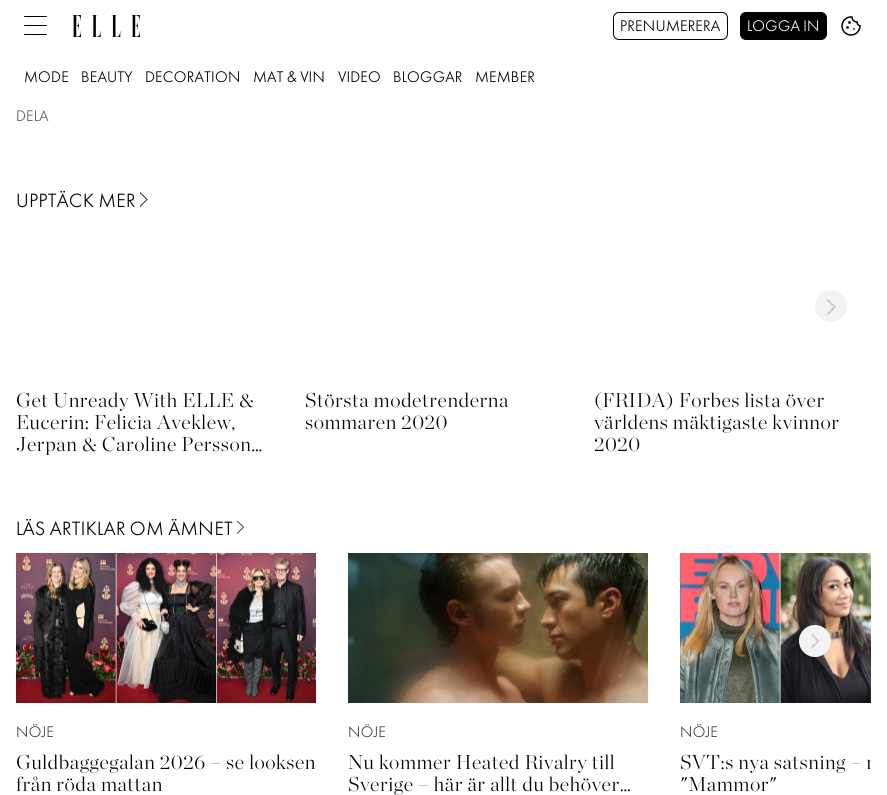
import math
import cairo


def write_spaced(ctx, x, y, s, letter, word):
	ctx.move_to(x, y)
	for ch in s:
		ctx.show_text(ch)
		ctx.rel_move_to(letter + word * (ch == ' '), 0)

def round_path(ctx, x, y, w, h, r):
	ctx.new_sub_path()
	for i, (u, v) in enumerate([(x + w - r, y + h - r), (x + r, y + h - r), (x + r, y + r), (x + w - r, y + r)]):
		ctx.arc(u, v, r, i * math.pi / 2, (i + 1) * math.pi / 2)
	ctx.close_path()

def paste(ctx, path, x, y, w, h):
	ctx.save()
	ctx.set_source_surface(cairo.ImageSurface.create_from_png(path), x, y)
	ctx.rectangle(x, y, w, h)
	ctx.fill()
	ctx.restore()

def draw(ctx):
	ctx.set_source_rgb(1, 1, 1)
	ctx.paint()
	ctx.set_source_rgb(0, 0, 0)
	round_path(ctx, 24, 16, 23, 1, 0.5)
	ctx.fill()
	round_path(ctx, 24, 25, 23, 1, 0.5)
	ctx.fill()
	round_path(ctx, 24, 34, 23, 1, 0.5)
	ctx.fill()
	paste(ctx, 'media/1.png', 72, 15, 68, 22)
	round_path(ctx, 613.5, 12.5, 114, 27, 5.5)
	ctx.set_line_width(1)
	ctx.stroke()
	ctx.select_font_face('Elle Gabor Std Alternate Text')
	ctx.set_font_size(16)
	write_spaced(ctx, 620, 31, 'PRENUMERERA', 0.25, 0)
	round_path(ctx, 740.5, 12.5, 86, 27, 5.5)
	ctx.fill_preserve()
	ctx.stroke()
	ctx.set_source_rgb(1, 1, 1)
	write_spaced(ctx, 747, 31, 'LOGGA IN', 0.25, 0)
	paste(ctx, 'media/2.png', 841, 16, 20, 20)
	ctx.set_source_rgb(0, 0, 0)
	for x, y, s in [
		(24, 82, 'MODE'),
		(81, 82, 'BEAUTY'),
		(145, 82, 'DECORATION'),
		(253, 82, 'MAT & VIN'),
		(338, 82, 'VIDEO'),
		(393, 82, 'BLOGGAR'),
		(475, 82, 'MEMBER'),
	]:
		write_spaced(ctx, x, y, s, 0.25, 0)
	ctx.set_source_rgb(0.373, 0.373, 0.373)
	write_spaced(ctx, 16, 121, 'DELA', 0.25, 0)
	ctx.set_font_size(20)
	ctx.set_source_rgb(0, 0, 0)
	write_spaced(ctx, 16, 207, 'UPPTÄCK MER', 0.5, 0)
	paste(ctx, 'media/3.png', 140, 192, 8, 15)
	ctx.set_source_rgb(0.953, 0.953, 0.953)
	ctx.arc(831, 306, 16, 0, 2 * math.pi)
	ctx.fill()
	paste(ctx, 'media/4.png', 826, 299, 10, 16)
	ctx.select_font_face('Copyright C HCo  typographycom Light')
	ctx.set_source_rgb(0, 0, 0)
	for x, y, s in [
		(16, 407, 'Get Unready With ELLE &'),
		(16, 429, 'Eucerin: Felicia Aveklew,'),
		(16, 451, 'Jerpan & Caroline Persson…'),
		(305, 407, 'Största modetrenderna'),
		(305, 429, 'sommaren 2020'),
		(594, 407, '(FRIDA) Forbes lista över'),
		(594, 429, 'världens mäktigaste kvinnor'),
		(594, 451, '2020'),
	]:
		write_spaced(ctx, x, y, s, 0.5, 0)
	ctx.save()
	ctx.rectangle(16, 519, 855, 276)
	ctx.clip()
	ctx.select_font_face('Elle Gabor Std Alternate Text')
	write_spaced(ctx, 16, 535, 'LÄS ARTIKLAR OM ÄMNET', 0.5, 0)
	ctx.restore()
	paste(ctx, 'media/5.png', 237, 520, 7, 14)
	paste(ctx, 'media/6.png', 16, 553, 300, 150)
	ctx.select_font_face('Elle Gabor Std Alternate Text')
	ctx.set_font_size(16)
	ctx.set_source_rgb(0.271, 0.271, 0.271)
	write_spaced(ctx, 16, 737, 'NÖJE', 0.25, 0)
	ctx.select_font_face('Copyright C HCo  typographycom Light')
	ctx.set_font_size(20)
	ctx.set_source_rgb(0, 0, 0)
	write_spaced(ctx, 16, 769, 'Guldbaggegalan 2026 – se looksen', 0.5, 0)
	write_spaced(ctx, 16, 791, 'från röda mattan', 0.5, 0)
	paste(ctx, 'media/7.png', 348, 553, 300, 150)
	ctx.select_font_face('Elle Gabor Std Alternate Text')
	ctx.set_font_size(16)
	ctx.set_source_rgb(0.271, 0.271, 0.271)
	write_spaced(ctx, 348, 737, 'NÖJE', 0.25, 0)
	ctx.select_font_face('Copyright C HCo  typographycom Light')
	ctx.set_font_size(20)
	ctx.set_source_rgb(0, 0, 0)
	write_spaced(ctx, 348, 769, 'Nu kommer Heated Rivalry till', 0.5, 0)
	write_spaced(ctx, 348, 791, 'Sverige – här är allt du behöver…', 0.5, 0)
	paste(ctx, 'media/8.png', 680, 553, 191, 150)
	ctx.select_font_face('Elle Gabor Std Alternate Text')
	ctx.set_font_size(16)
	ctx.set_source_rgb(0.271, 0.271, 0.271)
	write_spaced(ctx, 680, 737, 'NÖJE', 0.25, 0)
	ctx.save()
	ctx.rectangle(680, 751, 191, 44)
	ctx.clip()
	ctx.select_font_face('Copyright C HCo  typographycom Light')
	ctx.set_font_size(20)
	ctx.set_source_rgb(0, 0, 0)
	write_spaced(ctx, 680, 769, 'SVT:s nya satsning – r', 0.5, 0)
	ctx.restore()
	ctx.select_font_face('Copyright C HCo  typographycom Light')
	ctx.set_font_size(20)
	ctx.set_source_rgb(0, 0, 0)
	write_spaced(ctx, 680, 791, '"Mammor"', 0.5, 0)
	ctx.set_source_rgb(0.953, 0.953, 0.953)
	ctx.new_path()
	ctx.arc(815, 641, 16, 0, 2 * math.pi)
	ctx.fill()
	paste(ctx, 'media/9.png', 811, 634, 9, 14)


surface = cairo.ImageSurface(cairo.FORMAT_RGB24, 887, 795)
ctx = cairo.Context(surface)
options = cairo.FontOptions()
options.set_hint_metrics(cairo.HINT_METRICS_OFF)
options.set_hint_style(cairo.HINT_STYLE_NONE)
ctx.set_font_options(options)
ctx.set_miter_limit(4)
draw(ctx)
surface.write_to_png('image.png')
